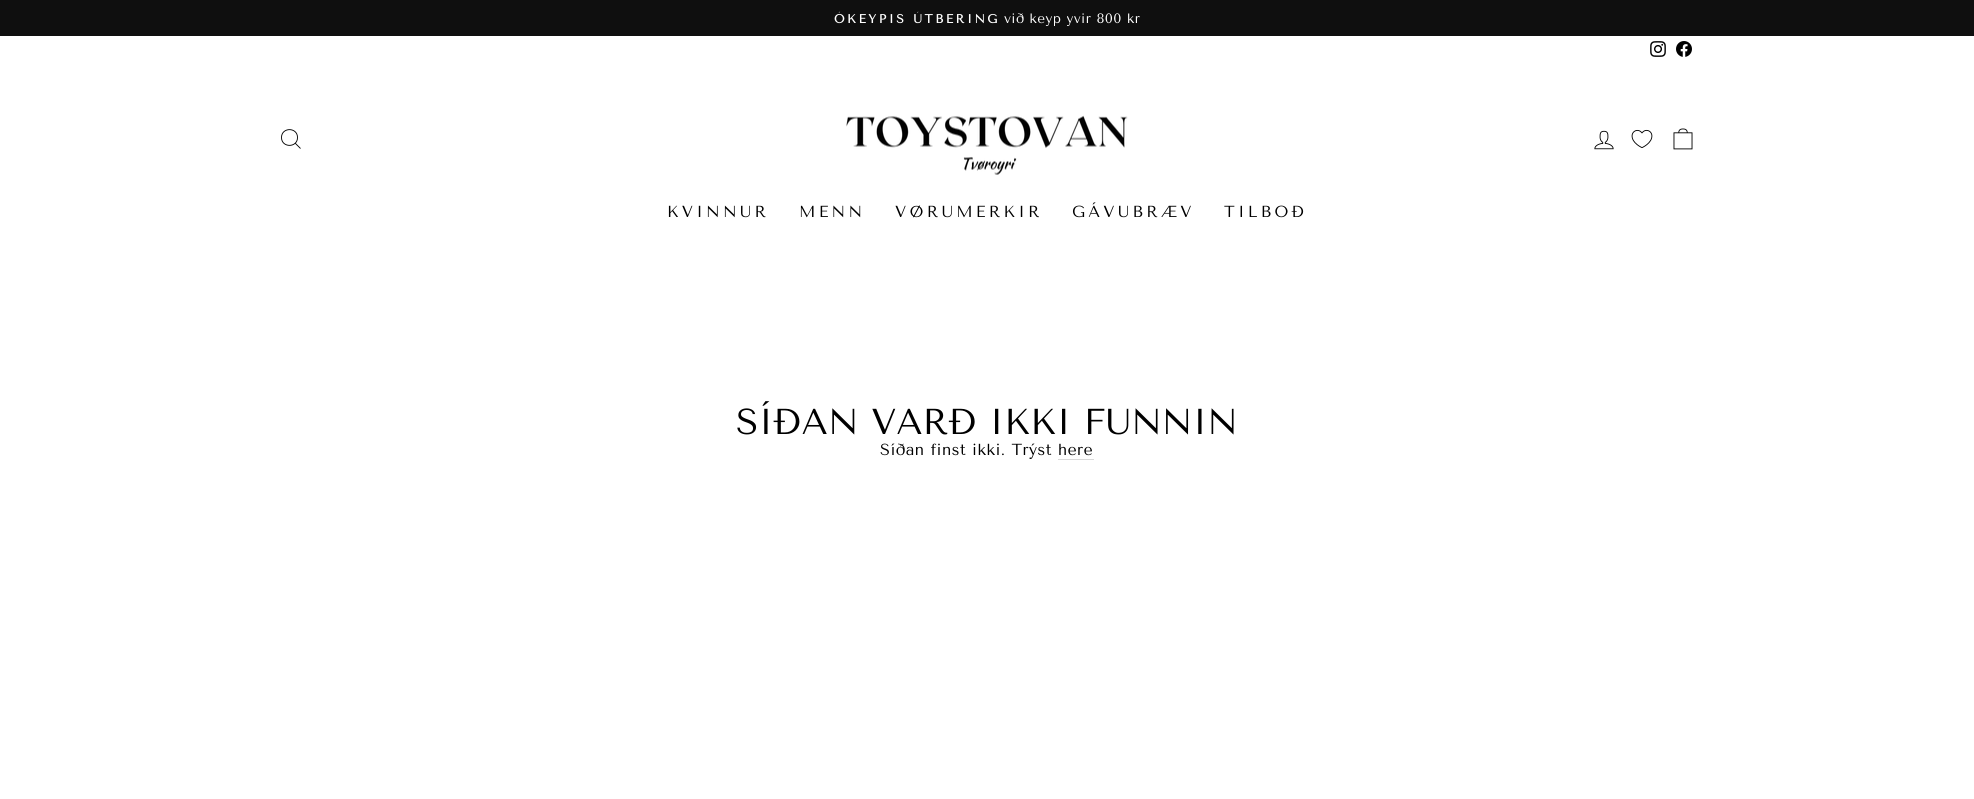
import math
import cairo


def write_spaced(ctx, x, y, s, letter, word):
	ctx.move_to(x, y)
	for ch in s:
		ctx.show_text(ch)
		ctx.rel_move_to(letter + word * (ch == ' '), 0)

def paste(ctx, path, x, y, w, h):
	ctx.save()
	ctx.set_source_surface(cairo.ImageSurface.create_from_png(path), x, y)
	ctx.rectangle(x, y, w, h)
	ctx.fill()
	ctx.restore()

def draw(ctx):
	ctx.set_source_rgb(1, 1, 1)
	ctx.paint()
	ctx.set_source_rgb(0.059, 0.059, 0.059)
	ctx.rectangle(0, 0, 1974, 36)
	ctx.fill()
	ctx.select_font_face('Tenor Sans', cairo.FONT_SLANT_NORMAL, cairo.FONT_WEIGHT_BOLD)
	ctx.set_font_size(12.25)
	ctx.set_source_rgb(1, 1, 1)
	write_spaced(ctx, 834, 23, 'ÓKEYPIS ÚTBERING', 2.5, 0)
	ctx.save()
	ctx.rectangle(277, 10, 1420, 16)
	ctx.clip()
	ctx.select_font_face('Tenor Sans')
	ctx.set_font_size(13.6)
	write_spaced(ctx, 1004, 23, 'við keyp yvir 800 kr', 0.4, 0)
	ctx.restore()
	paste(ctx, 'media/1.png', 1650, 41, 16, 16)
	paste(ctx, 'media/2.png', 1676, 41, 16, 16)
	ctx.new_path()
	ctx.move_to(297.5, 137.5)
	ctx.curve_to(297.5, 148, 281.5, 148, 281.5, 137.5)
	ctx.curve_to(281.5, 127, 297.5, 127, 297.5, 137.5)
	ctx.close_path()
	ctx.move_to(300.5, 148.5)
	ctx.line_to(295.5, 143.5)
	ctx.set_source_rgb(0, 0, 0)
	ctx.set_line_width(0.9)
	ctx.stroke()
	paste(ctx, 'media/3.png', 846, 115, 282, 60)
	paste(ctx, 'media/4.png', 1594, 130, 20, 20)
	paste(ctx, 'media/5.png', 1631, 129, 22, 19)
	paste(ctx, 'media/6.png', 1673, 128, 20, 22)
	ctx.select_font_face('Tenor Sans')
	ctx.set_font_size(16)
	for x, y, s in [
		(667, 217, 'KVINNUR'),
		(799, 217, 'MENN'),
		(895, 217, 'VØRUMERKIR'),
		(1072, 217, 'GÁVUBRÆV'),
		(1224, 217, 'TILBOÐ'),
	]:
		write_spaced(ctx, x, y, s, 3.25, 0)
	ctx.set_font_size(36)
	ctx.move_to(736, 434)
	ctx.show_text('SÍÐAN VARÐ IKKI FUNNIN')
	ctx.set_font_size(16)
	write_spaced(ctx, 880, 455, 'Síðan finst ikki. Trýst here', 0.4, 0)
	ctx.set_source_rgb(0.851, 0.851, 0.851)
	ctx.rectangle(1058, 459, 36, 1)
	ctx.fill()


surface = cairo.ImageSurface(cairo.FORMAT_RGB24, 1974, 799)
ctx = cairo.Context(surface)
options = cairo.FontOptions()
options.set_hint_metrics(cairo.HINT_METRICS_OFF)
options.set_hint_style(cairo.HINT_STYLE_NONE)
ctx.set_font_options(options)
ctx.set_miter_limit(4)
draw(ctx)
surface.write_to_png('image.png')
